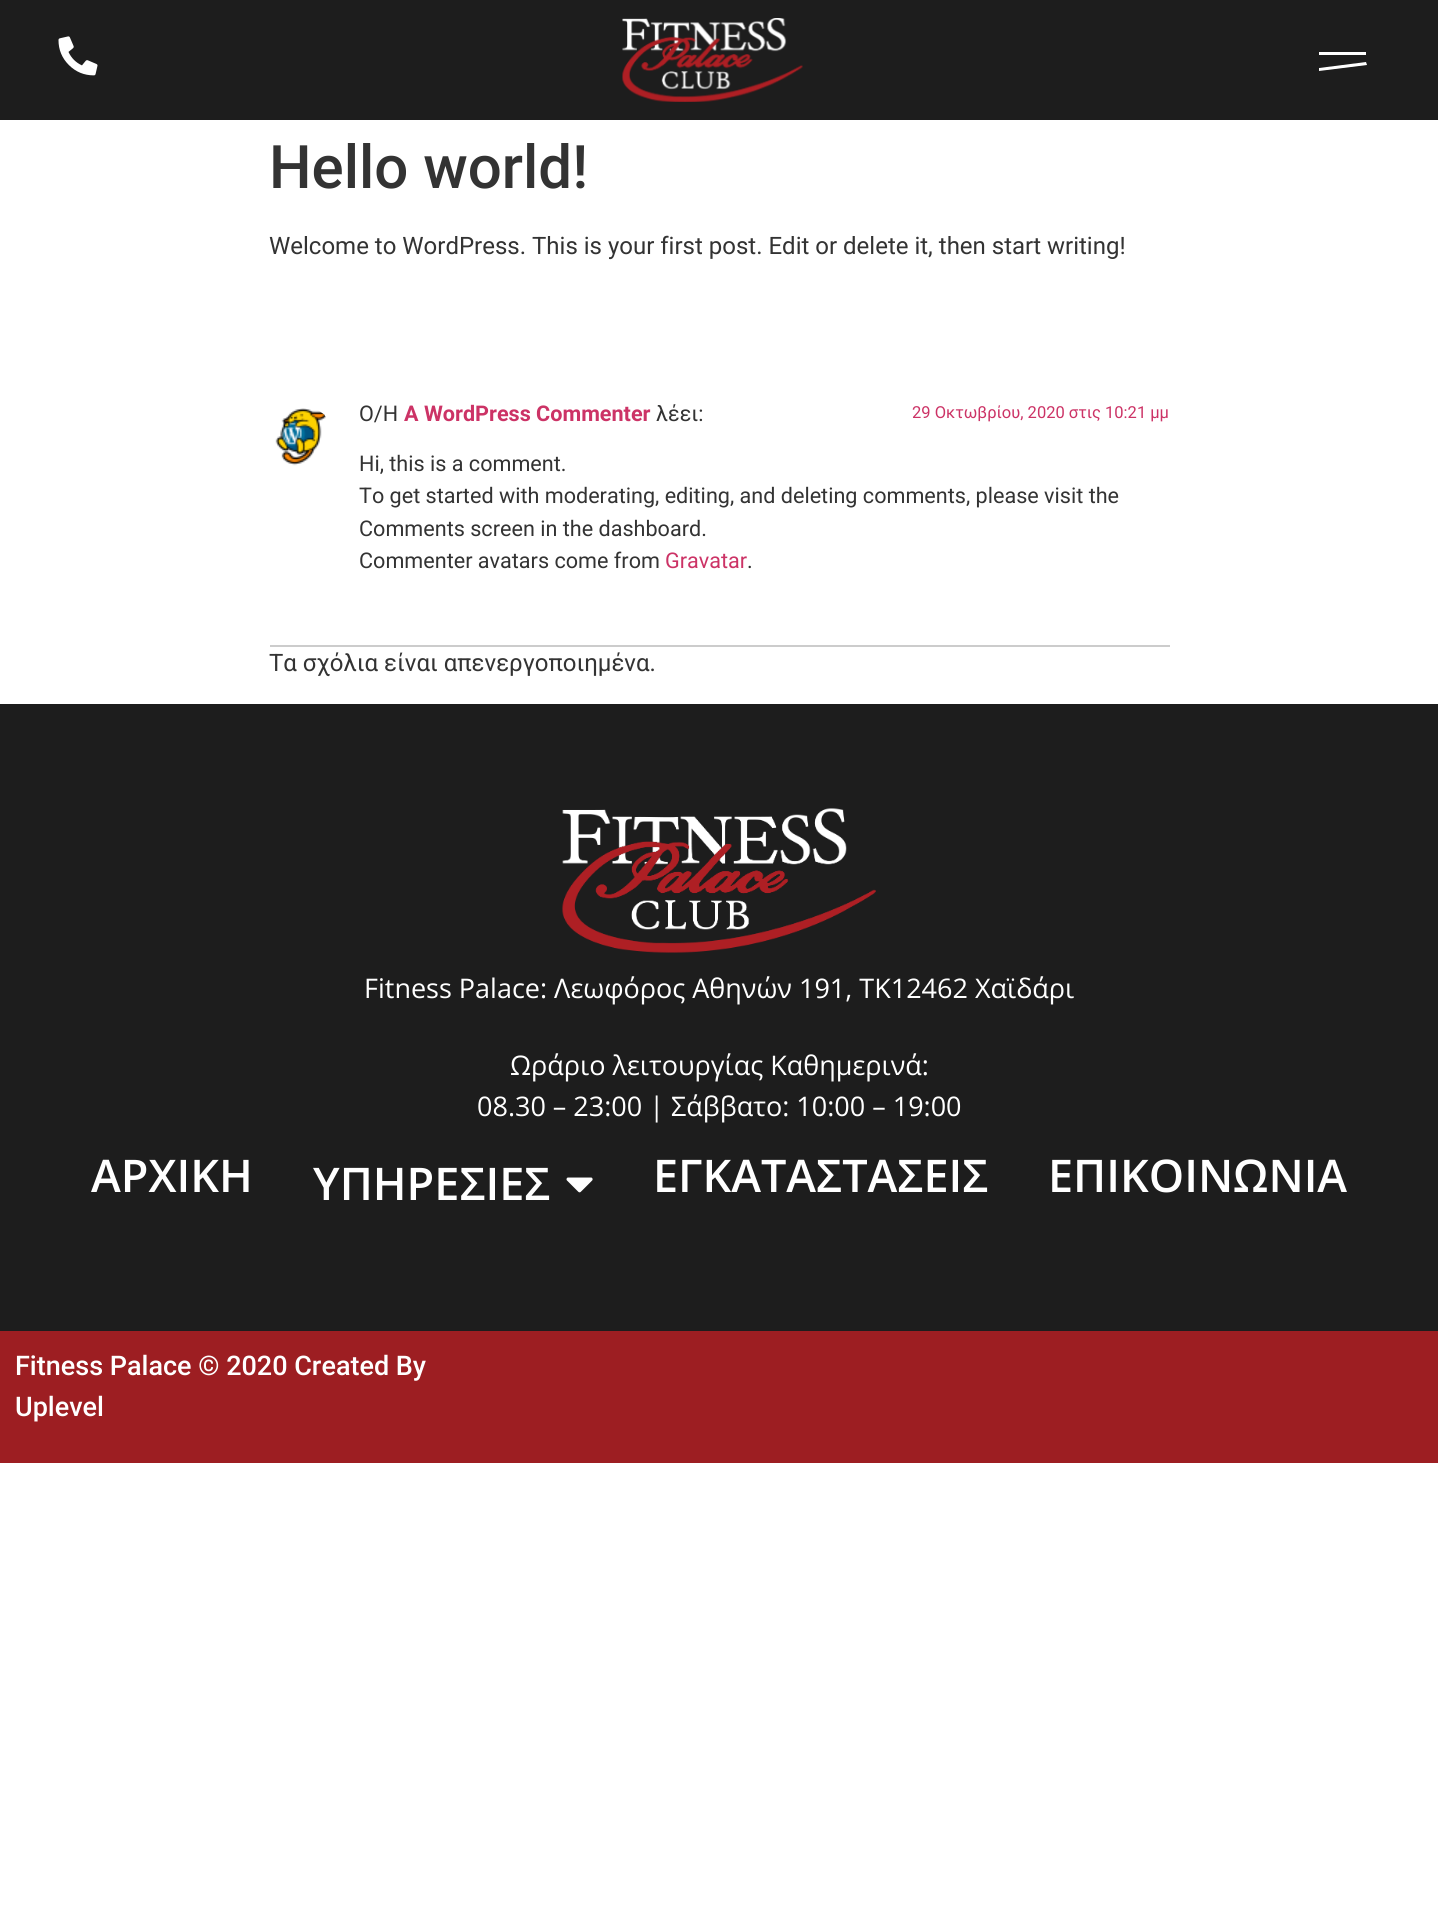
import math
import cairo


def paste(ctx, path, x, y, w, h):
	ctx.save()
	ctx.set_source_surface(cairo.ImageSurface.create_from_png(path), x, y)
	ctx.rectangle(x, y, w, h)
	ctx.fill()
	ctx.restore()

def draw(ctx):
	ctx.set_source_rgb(1, 1, 1)
	ctx.paint()
	ctx.set_source_rgb(0.114, 0.114, 0.114)
	ctx.rectangle(0, 0, 1438, 120)
	ctx.fill()
	paste(ctx, 'media/1.png', 58, 36, 40, 40)
	paste(ctx, 'media/2.png', 622, 18, 181, 84)
	ctx.set_source_rgb(1, 1, 1)
	ctx.rectangle(1319, 52, 47, 3)
	ctx.fill()
	ctx.new_path()
	ctx.move_to(1319, 68)
	ctx.line_to(1366, 62)
	ctx.line_to(1367, 65)
	ctx.line_to(1319, 71)
	ctx.close_path()
	ctx.fill()
	ctx.select_font_face('Roboto Medium')
	ctx.set_font_size(60)
	ctx.set_source_rgb(0.2, 0.2, 0.2)
	ctx.move_to(269, 188)
	ctx.show_text('Hello world!')
	ctx.select_font_face('Roboto')
	ctx.set_font_size(24)
	ctx.move_to(269, 254)
	ctx.show_text('Welcome to WordPress. This is your first post. Edit or delete it, then start writing!')
	ctx.set_source_rgb(0.8, 0.8, 0.8)
	ctx.rectangle(270, 645, 900, 2)
	ctx.fill()
	paste(ctx, 'media/3.png', 275, 408, 51, 58)
	ctx.set_font_size(21.6)
	ctx.set_source_rgb(0.2, 0.2, 0.2)
	ctx.move_to(359, 421)
	ctx.show_text('Ο/Η')
	ctx.select_font_face('Roboto', cairo.FONT_SLANT_NORMAL, cairo.FONT_WEIGHT_BOLD)
	ctx.set_source_rgb(0.8, 0.2, 0.4)
	ctx.move_to(404, 421)
	ctx.show_text('A WordPress Commenter')
	ctx.select_font_face('Roboto')
	ctx.set_source_rgb(0.2, 0.2, 0.2)
	ctx.move_to(656, 421)
	ctx.show_text('λέει:')
	ctx.set_font_size(16.5)
	ctx.set_source_rgb(0.8, 0.2, 0.4)
	ctx.move_to(912, 418)
	ctx.show_text('29 Οκτωβρίου, 2020 στις 10:21 μμ')
	ctx.set_font_size(21.6)
	ctx.set_source_rgb(0.2, 0.2, 0.2)
	for x, y, s in [
		(359, 471, 'Hi, this is a comment.'),
		(359, 503, 'To get started with moderating, editing, and deleting comments, please visit the'),
		(359, 536, 'Comments screen in the dashboard.'),
		(359, 568, 'Commenter avatars come from'),
	]:
		ctx.move_to(x, y)
		ctx.show_text(s)
	ctx.set_source_rgb(0.8, 0.2, 0.4)
	ctx.move_to(665, 568)
	ctx.show_text('Gravatar')
	ctx.set_source_rgb(0.2, 0.2, 0.2)
	ctx.move_to(747, 568)
	ctx.show_text('.')
	ctx.set_font_size(24)
	ctx.move_to(269, 671)
	ctx.show_text('Τα σχόλια είναι απενεργοποιημένα.')
	ctx.set_source_rgb(0.114, 0.114, 0.114)
	ctx.rectangle(0, 704, 1438, 627)
	ctx.fill()
	paste(ctx, 'media/4.png', 562, 808, 314, 145)
	ctx.select_font_face('Open Sans')
	ctx.set_font_size(27)
	ctx.set_source_rgb(1, 1, 1)
	for x, y, s in [
		(364, 998, 'Fitness Palace: Λεωφόρος Αθηνών 191, ΤΚ12462 Χαϊδάρι'),
		(510, 1075, 'Ωράριο λειτουργίας Καθημερινά:'),
		(477, 1116, '08.30 – 23:00 | Σάββατο: 10:00 – 19:00'),
	]:
		ctx.move_to(x, y)
		ctx.show_text(s)
	ctx.select_font_face('Open Sans SemiBold')
	ctx.set_font_size(45)
	ctx.move_to(91, 1192)
	ctx.show_text('ΑΡΧΙΚΗ')
	ctx.move_to(313, 1200)
	ctx.show_text('ΥΠΗΡΕΣΙΕΣ')
	paste(ctx, 'media/5.png', 566, 1177, 27, 16)
	ctx.move_to(653, 1192)
	ctx.show_text('ΕΓΚΑΤΑΣΤΑΣΕΙΣ')
	ctx.move_to(1048, 1192)
	ctx.show_text('ΕΠΙΚΟΙΝΩΝΙΑ')
	ctx.set_source_rgb(0.616, 0.118, 0.133)
	ctx.rectangle(0, 1331, 1438, 132)
	ctx.fill()
	ctx.select_font_face('Roboto Medium')
	ctx.set_font_size(27)
	ctx.set_source_rgb(1, 1, 1)
	ctx.move_to(15, 1375)
	ctx.show_text('Fitness Palace © 2020 Created By')
	ctx.move_to(15, 1416)
	ctx.show_text('Uplevel')


surface = cairo.ImageSurface(cairo.FORMAT_RGB24, 1438, 1920)
ctx = cairo.Context(surface)
options = cairo.FontOptions()
options.set_hint_metrics(cairo.HINT_METRICS_OFF)
options.set_hint_style(cairo.HINT_STYLE_NONE)
ctx.set_font_options(options)
ctx.set_miter_limit(4)
draw(ctx)
surface.write_to_png('image.png')
